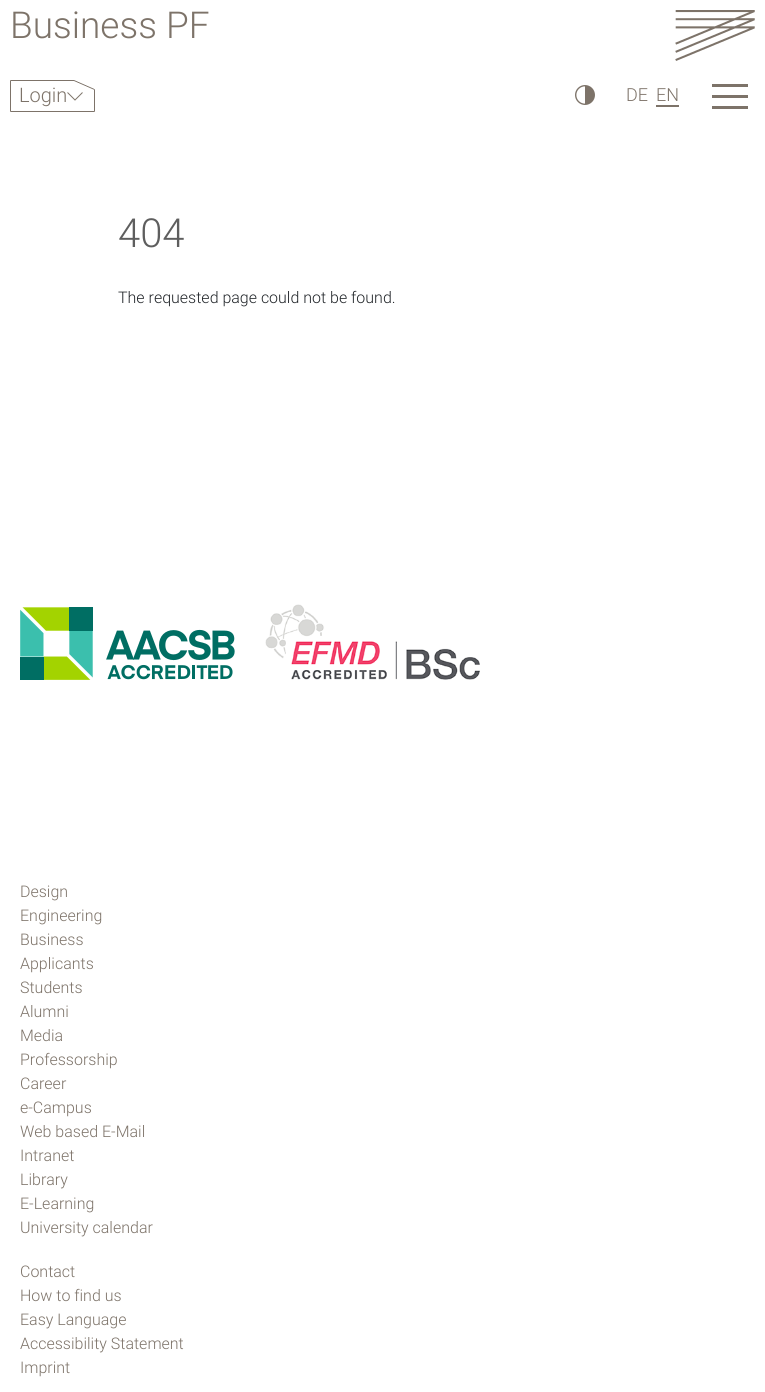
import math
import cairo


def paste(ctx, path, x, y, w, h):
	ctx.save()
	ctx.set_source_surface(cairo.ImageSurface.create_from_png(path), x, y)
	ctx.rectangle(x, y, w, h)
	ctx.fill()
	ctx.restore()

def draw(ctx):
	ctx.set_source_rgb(1, 1, 1)
	ctx.paint()
	ctx.select_font_face('Roboto Light')
	ctx.set_font_size(37)
	ctx.set_source_rgb(0.49, 0.451, 0.412)
	ctx.move_to(10, 38)
	ctx.show_text('Business PF')
	paste(ctx, 'media/1.png', 675, 10, 80, 51)
	paste(ctx, 'media/2.png', 10, 80, 85, 32)
	ctx.set_font_size(20)
	ctx.move_to(19, 102)
	ctx.show_text('Login')
	ctx.new_path()
	ctx.move_to(82.5, 92.5)
	ctx.line_to(75, 100)
	ctx.line_to(67.5, 92.5)
	ctx.set_line_width(1)
	ctx.stroke()
	paste(ctx, 'media/3.png', 575, 85, 20, 20)
	ctx.set_font_size(18)
	ctx.move_to(626, 101)
	ctx.show_text('DE')
	ctx.move_to(656, 101)
	ctx.show_text('EN')
	ctx.rectangle(656, 105, 23, 2)
	ctx.rectangle(712, 84, 36, 3)
	ctx.rectangle(712, 95, 36, 3)
	ctx.rectangle(712, 106, 36, 3)
	ctx.fill()
	ctx.set_font_size(40)
	ctx.set_source_rgb(0.369, 0.369, 0.369)
	ctx.move_to(118, 247)
	ctx.show_text('404')
	ctx.set_font_size(16)
	ctx.set_source_rgb(0.129, 0.145, 0.161)
	ctx.move_to(118, 303)
	ctx.show_text('The requested page could not be found.')
	paste(ctx, 'media/4.png', 20, 607, 215, 73)
	paste(ctx, 'media/5.png', 265, 604, 215, 76)
	ctx.set_source_rgb(0.49, 0.451, 0.412)
	for x, y, s in [
		(20, 897, 'Design'),
		(20, 921, 'Engineering'),
		(20, 945, 'Business'),
		(20, 969, 'Applicants'),
		(20, 993, 'Students'),
		(20, 1017, 'Alumni'),
		(20, 1041, 'Media'),
		(20, 1065, 'Professorship'),
		(20, 1089, 'Career'),
		(20, 1113, 'e-Campus'),
		(20, 1137, 'Web based E-Mail'),
		(20, 1161, 'Intranet'),
		(20, 1185, 'Library'),
		(20, 1209, 'E-Learning'),
		(20, 1233, 'University calendar'),
		(20, 1277, 'Contact'),
		(20, 1301, 'How to find us'),
		(20, 1325, 'Easy Language'),
		(20, 1349, 'Accessibility Statement'),
		(20, 1373, 'Imprint'),
	]:
		ctx.move_to(x, y)
		ctx.show_text(s)


surface = cairo.ImageSurface(cairo.FORMAT_RGB24, 765, 1392)
ctx = cairo.Context(surface)
options = cairo.FontOptions()
options.set_hint_metrics(cairo.HINT_METRICS_OFF)
options.set_hint_style(cairo.HINT_STYLE_NONE)
ctx.set_font_options(options)
ctx.set_miter_limit(4)
draw(ctx)
surface.write_to_png('image.png')
